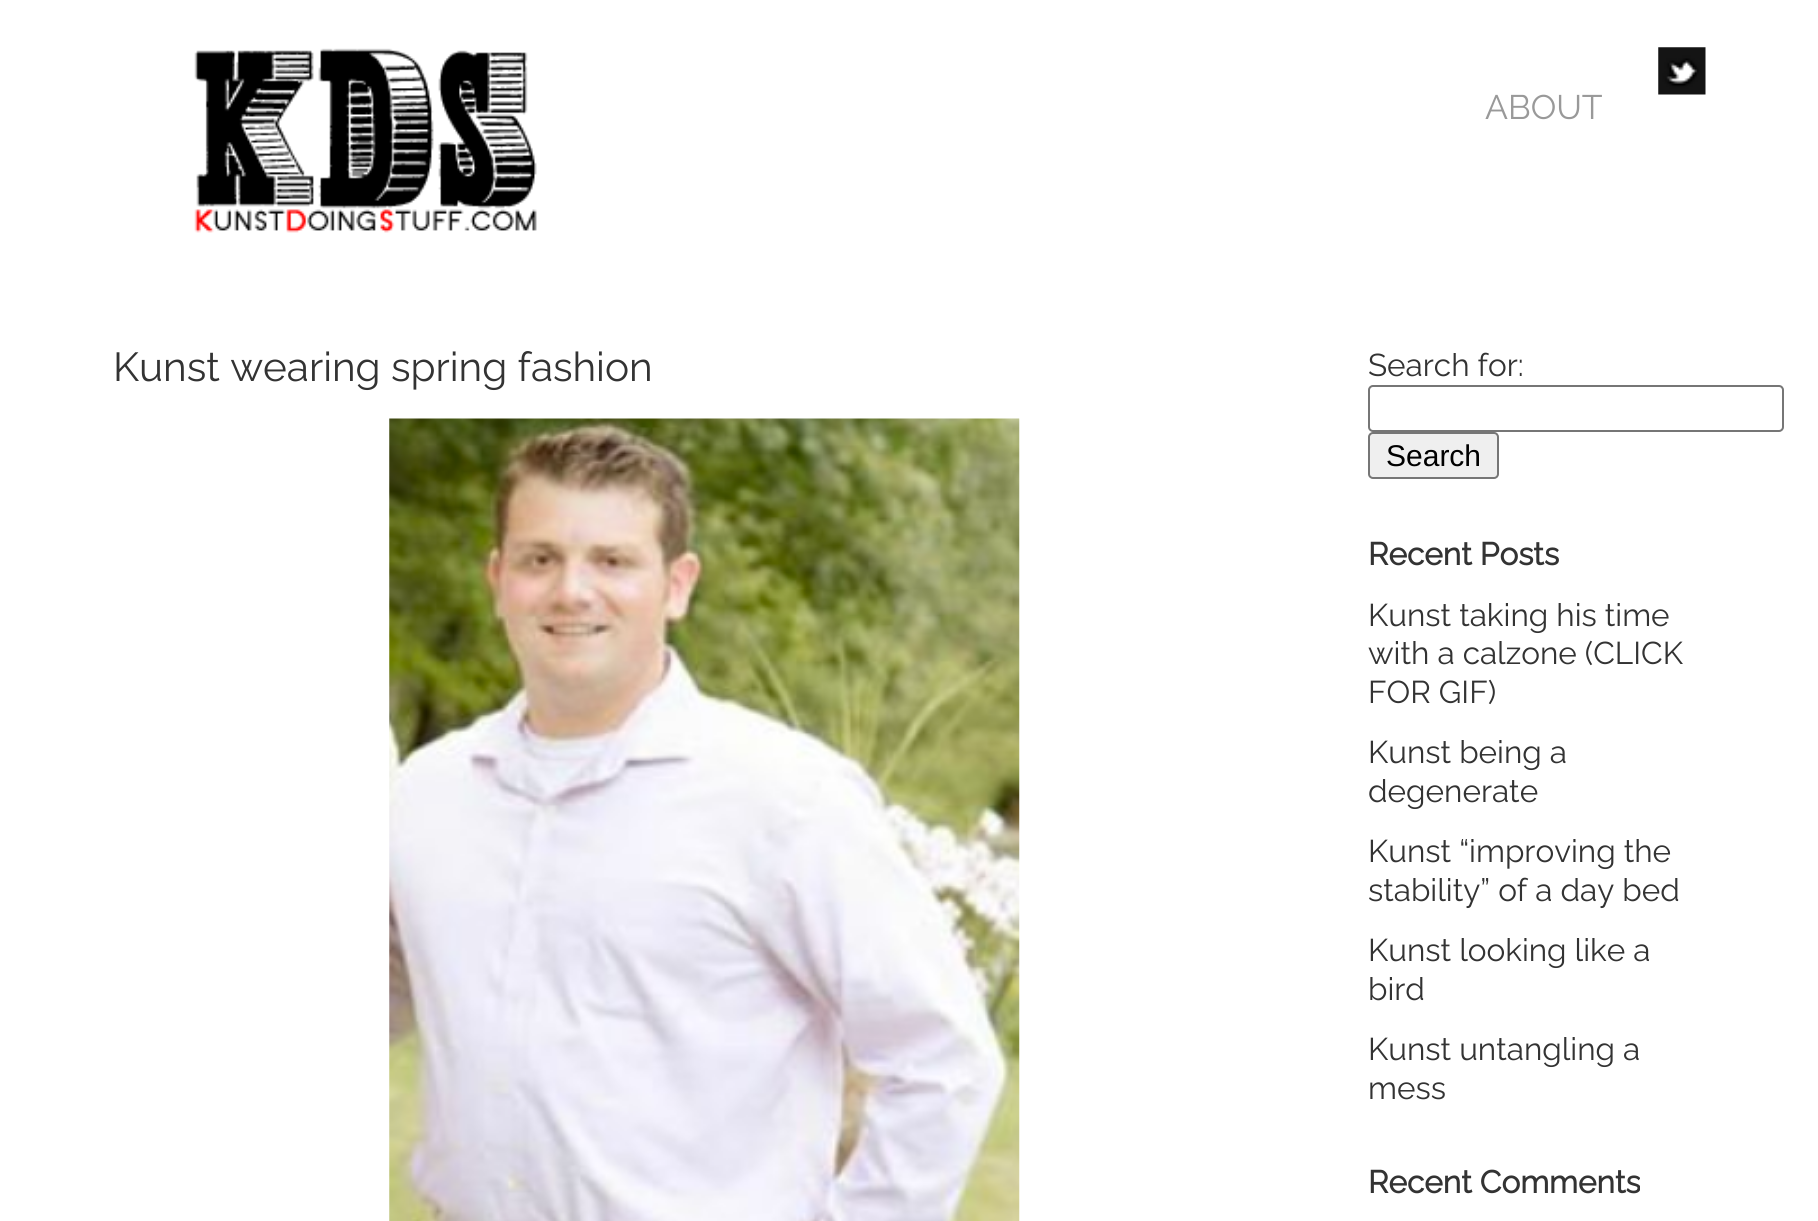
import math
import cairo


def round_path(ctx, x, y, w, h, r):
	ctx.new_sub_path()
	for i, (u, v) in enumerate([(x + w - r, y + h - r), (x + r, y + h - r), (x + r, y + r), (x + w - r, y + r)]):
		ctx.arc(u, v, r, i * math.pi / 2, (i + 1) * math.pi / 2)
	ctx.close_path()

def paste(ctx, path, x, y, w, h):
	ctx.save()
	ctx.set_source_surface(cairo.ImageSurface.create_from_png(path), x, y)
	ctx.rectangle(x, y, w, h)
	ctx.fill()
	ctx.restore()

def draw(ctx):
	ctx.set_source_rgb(1, 1, 1)
	ctx.paint()
	paste(ctx, 'media/1.png', 194, 48, 343, 185)
	paste(ctx, 'media/2.png', 1658, 47, 48, 48)
	ctx.select_font_face('Raleway')
	ctx.set_font_size(34)
	ctx.set_source_rgb(0.6, 0.6, 0.6)
	ctx.move_to(1485, 119)
	ctx.show_text('ABOUT')
	ctx.set_font_size(40.5)
	ctx.set_source_rgb(0.2, 0.2, 0.2)
	ctx.move_to(113, 381)
	ctx.show_text('Kunst wearing spring fashion')
	paste(ctx, 'media/3.png', 389, 418, 631, 803)
	ctx.set_font_size(31.5)
	ctx.move_to(1368, 376)
	ctx.show_text('Search for:')
	round_path(ctx, 1369, 386, 414, 45, 4)
	ctx.set_source_rgb(0.463, 0.463, 0.463)
	ctx.stroke()
	ctx.set_source_rgb(0.937, 0.937, 0.937)
	round_path(ctx, 1369, 433, 129, 45, 4)
	ctx.fill_preserve()
	ctx.set_source_rgb(0.463, 0.463, 0.463)
	ctx.stroke()
	ctx.select_font_face('Liberation Sans')
	ctx.set_font_size(30)
	ctx.set_source_rgb(0, 0, 0)
	ctx.move_to(1386, 466)
	ctx.show_text('Search')
	ctx.select_font_face('Raleway', cairo.FONT_SLANT_NORMAL, cairo.FONT_WEIGHT_BOLD)
	ctx.set_font_size(31.5)
	ctx.set_source_rgb(0.2, 0.2, 0.2)
	ctx.move_to(1368, 565)
	ctx.show_text('Recent Posts')
	ctx.select_font_face('Raleway')
	for x, y, s in [
		(1368, 626, 'Kunst taking his time'),
		(1368, 664, 'with a calzone (CLICK'),
		(1368, 703, 'FOR GIF)'),
		(1368, 763, 'Kunst being a'),
		(1368, 802, 'degenerate'),
		(1368, 862, 'Kunst “improving the'),
		(1368, 901, 'stability” of a day bed'),
		(1368, 961, 'Kunst looking like a'),
		(1368, 1000, 'bird'),
		(1368, 1060, 'Kunst untangling a'),
		(1368, 1099, 'mess'),
	]:
		ctx.move_to(x, y)
		ctx.show_text(s)
	ctx.select_font_face('Raleway', cairo.FONT_SLANT_NORMAL, cairo.FONT_WEIGHT_BOLD)
	ctx.move_to(1368, 1193)
	ctx.show_text('Recent Comments')


surface = cairo.ImageSurface(cairo.FORMAT_RGB24, 1818, 1221)
ctx = cairo.Context(surface)
options = cairo.FontOptions()
options.set_hint_metrics(cairo.HINT_METRICS_OFF)
options.set_hint_style(cairo.HINT_STYLE_NONE)
ctx.set_font_options(options)
ctx.set_miter_limit(4)
draw(ctx)
surface.write_to_png('image.png')
